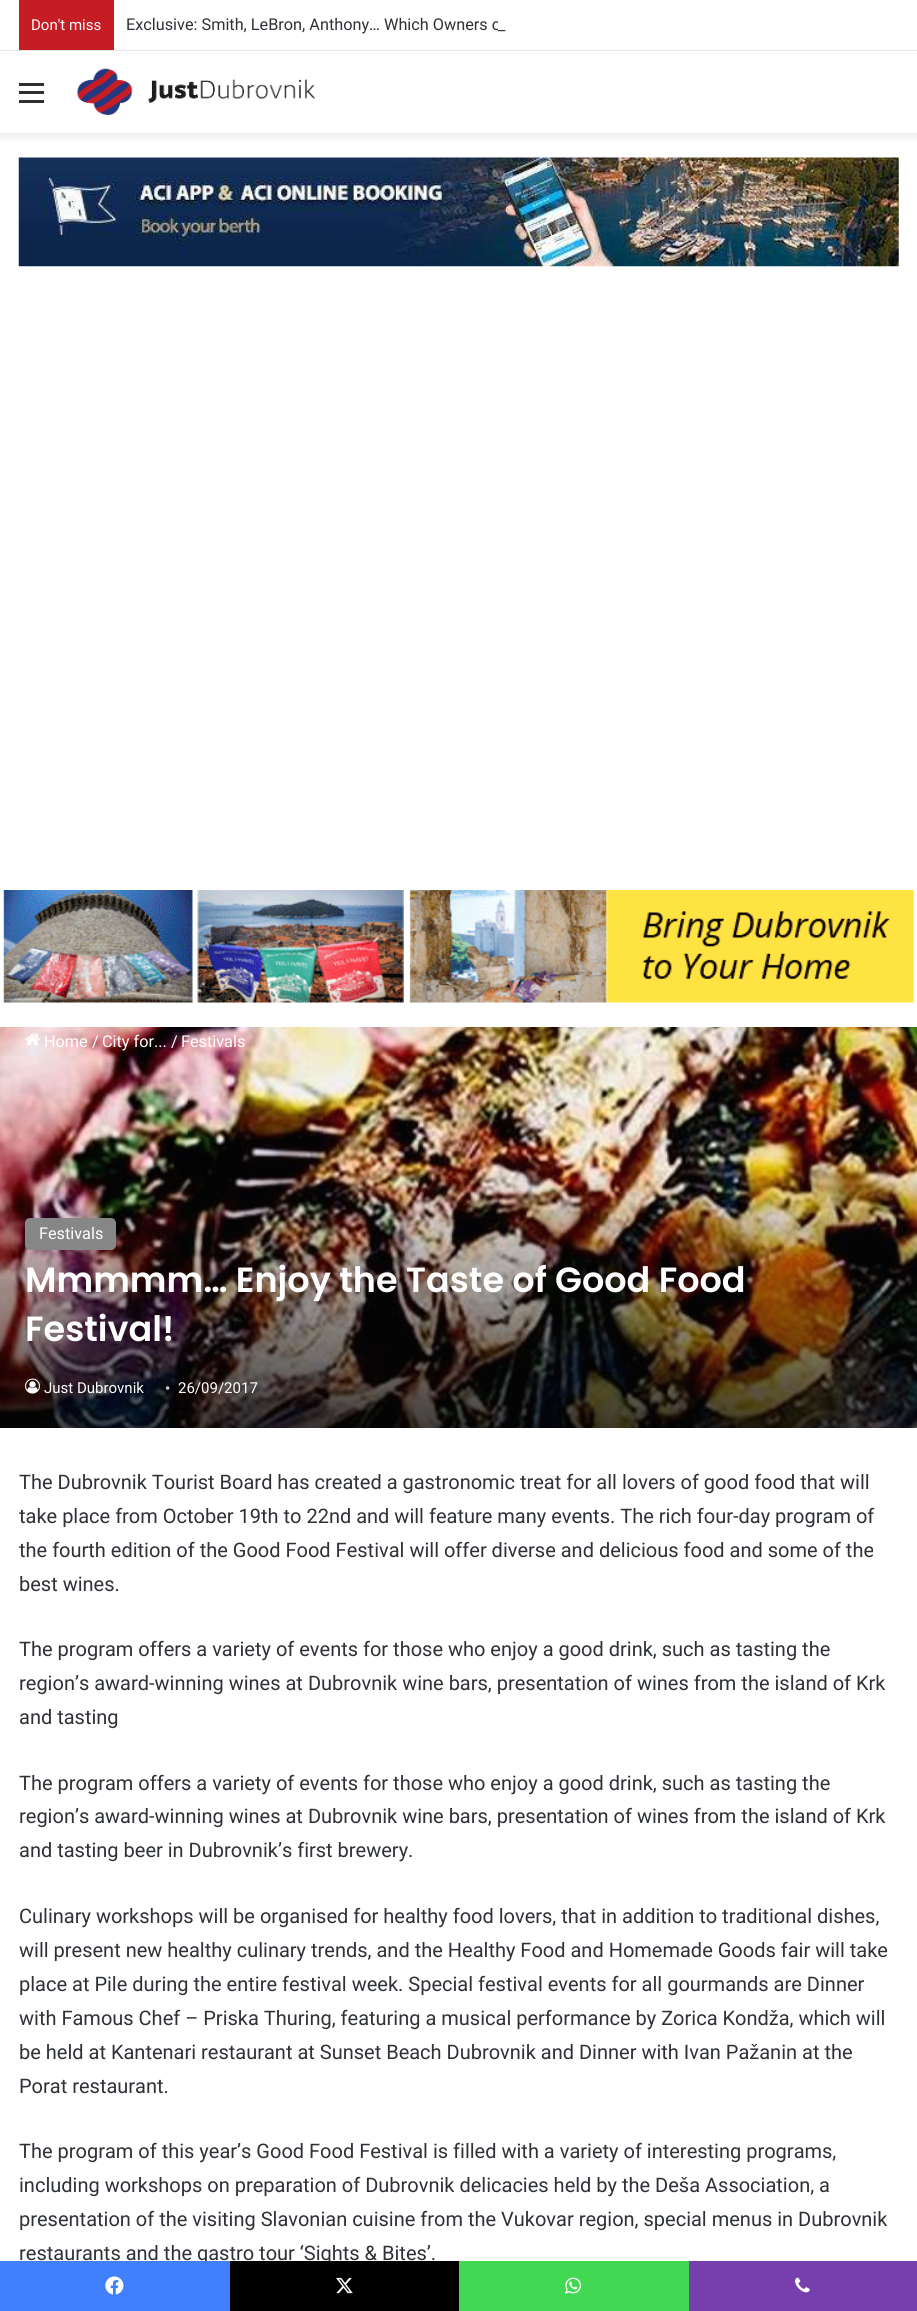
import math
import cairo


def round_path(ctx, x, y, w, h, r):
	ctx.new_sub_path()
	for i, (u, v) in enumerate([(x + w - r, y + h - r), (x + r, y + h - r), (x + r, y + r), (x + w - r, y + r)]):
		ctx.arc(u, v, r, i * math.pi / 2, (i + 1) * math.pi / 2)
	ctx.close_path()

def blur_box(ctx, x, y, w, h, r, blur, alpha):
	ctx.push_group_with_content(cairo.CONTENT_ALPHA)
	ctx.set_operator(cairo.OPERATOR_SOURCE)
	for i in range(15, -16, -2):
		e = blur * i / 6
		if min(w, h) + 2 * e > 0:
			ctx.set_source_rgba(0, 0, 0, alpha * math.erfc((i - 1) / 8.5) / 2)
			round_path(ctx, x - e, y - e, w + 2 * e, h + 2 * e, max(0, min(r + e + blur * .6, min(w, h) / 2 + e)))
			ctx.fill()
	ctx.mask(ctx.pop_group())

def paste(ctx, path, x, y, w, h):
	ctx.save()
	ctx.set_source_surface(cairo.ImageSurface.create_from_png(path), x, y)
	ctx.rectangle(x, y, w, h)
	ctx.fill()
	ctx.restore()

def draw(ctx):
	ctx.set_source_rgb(1, 1, 1)
	ctx.paint()
	ctx.set_source_rgb(0, 0, 0)
	blur_box(ctx, 0, 55, 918, 81, 0, 4.5, 0.1)
	ctx.set_source_rgb(1, 1, 1)
	ctx.rectangle(6, 49, 906, 1)
	ctx.fill()
	ctx.set_source_rgb(0.902, 0.902, 0.902)
	ctx.rectangle(0, 50, 917, 1)
	ctx.fill()
	ctx.set_source_rgb(0.776, 0.114, 0.145)
	ctx.rectangle(19, 0, 95, 50)
	ctx.fill()
	ctx.select_font_face('Roboto')
	ctx.set_font_size(15)
	ctx.set_source_rgb(1, 0.996, 0.996)
	ctx.move_to(31, 30)
	ctx.show_text('Don\'t miss')
	ctx.set_font_size(16.25)
	ctx.set_source_rgb(0.18, 0.192, 0.212)
	ctx.move_to(126, 30)
	ctx.show_text('Exclusive: Smith, LeBron, Anthony… Which Owners o')
	ctx.set_source_rgb(1, 1, 1)
	ctx.rectangle(498, 21, 3, 9)
	ctx.fill()
	ctx.set_source_rgb(0.18, 0.192, 0.212)
	ctx.move_to(498, 30)
	ctx.show_text('_')
	ctx.set_source_rgb(1, 1, 1)
	ctx.rectangle(0, 51, 917, 82)
	ctx.fill()
	ctx.set_source_rgb(0.173, 0.184, 0.204)
	ctx.rectangle(19, 91, 25, 3)
	ctx.rectangle(19, 83, 25, 3)
	ctx.rectangle(19, 100, 25, 3)
	ctx.fill()
	paste(ctx, 'media/1.png', 77, 68, 238, 47)
	paste(ctx, 'media/2.png', 18, 157, 881, 110)
	paste(ctx, 'media/3.png', 3, 890, 911, 113)
	paste(ctx, 'media/4.png', 0, 1027, 917, 401)
	paste(ctx, 'media/5.png', 25, 1033, 15, 12)
	ctx.set_source_rgb(1, 0.996, 0.996)
	for x, y, s in [
		(44, 1047, 'Home'),
		(92, 1047, '/'),
		(102, 1047, 'City for...'),
		(171, 1047, '/'),
		(181, 1047, 'Festivals'),
	]:
		ctx.move_to(x, y)
		ctx.show_text(s)
	ctx.set_source_rgba(0.529, 0.529, 0.529, 0.99)
	round_path(ctx, 25, 1218, 91, 32, 5)
	ctx.fill()
	ctx.set_source_rgb(1, 0.996, 0.996)
	ctx.move_to(39, 1239)
	ctx.show_text('Festivals')
	ctx.select_font_face('Poppins SemiBold')
	ctx.set_font_size(35)
	ctx.move_to(25, 1292)
	ctx.show_text('Mmmmm… Enjoy the Taste of Good Food')
	ctx.move_to(25, 1341)
	ctx.show_text('Festival!')
	paste(ctx, 'media/6.png', 25, 1378, 15, 16)
	ctx.select_font_face('Roboto')
	ctx.set_font_size(15)
	ctx.move_to(44, 1393)
	ctx.show_text('Just Dubrovnik')
	ctx.select_font_face('Liberation Serif')
	ctx.set_source_rgb(0.792, 0.792, 0.792)
	ctx.move_to(165, 1393)
	ctx.show_text('•')
	ctx.select_font_face('Roboto')
	ctx.set_source_rgb(1, 0.996, 0.996)
	ctx.move_to(178, 1393)
	ctx.show_text('26/09/2017')
	ctx.set_font_size(20)
	ctx.set_source_rgb(0.18, 0.192, 0.212)
	for x, y, s in [
		(19, 1489, 'The Dubrovnik Tourist Board has created a gastronomic treat for all lovers of good food that will'),
		(19, 1523, 'take place from October 19th to 22nd and will feature many events. The rich four-day program of'),
		(19, 1557, 'the fourth edition of the Good Food Festival will offer diverse and delicious food and some of the'),
		(19, 1591, 'best wines.'),
		(19, 1656, 'The program offers a variety of events for those who enjoy a good drink, such as tasting the'),
		(19, 1690, 'region’s award-winning wines at Dubrovnik wine bars, presentation of wines from the island of Krk'),
		(19, 1724, 'and tasting'),
		(19, 1790, 'The program offers a variety of events for those who enjoy a good drink, such as tasting the'),
		(19, 1823, 'region’s award-winning wines at Dubrovnik wine bars, presentation of wines from the island of Krk'),
		(19, 1857, 'and tasting beer in Dubrovnik’s first brewery.'),
		(19, 1923, 'Culinary workshops will be organised for healthy food lovers, that in addition to traditional dishes,'),
		(19, 1957, 'will present new healthy culinary trends, and the Healthy Food and Homemade Goods fair will take'),
		(19, 1991, 'place at Pile during the entire festival week. Special festival events for all gourmands are Dinner'),
		(19, 2025, 'with Famous Chef – Priska Thuring, featuring a musical performance by Zorica Kondža, which will'),
		(19, 2059, 'be held at Kantenari restaurant at Sunset Beach Dubrovnik and Dinner with Ivan Pažanin at the'),
		(19, 2093, 'Porat restaurant.'),
		(19, 2158, 'The program of this year’s Good Food Festival is filled with a variety of interesting programs,'),
		(19, 2192, 'including workshops on preparation of Dubrovnik delicacies held by the Deša Association, a'),
		(19, 2226, 'presentation of the visiting Slavonian cuisine from the Vukovar region, special menus in Dubrovnik'),
		(19, 2260, 'restaurants and the gastro tour ‘Sights & Bites’.'),
	]:
		ctx.move_to(x, y)
		ctx.show_text(s)
	ctx.set_source_rgb(0.251, 0.502, 1)
	ctx.rectangle(0, 2261, 230, 50)
	ctx.fill()
	paste(ctx, 'media/7.png', 105, 2276, 19, 19)
	ctx.set_source_rgb(0, 0, 0)
	ctx.rectangle(230, 2261, 229, 50)
	ctx.fill()
	paste(ctx, 'media/8.png', 336, 2277, 17, 17)
	ctx.set_source_rgb(0.263, 0.847, 0.329)
	ctx.rectangle(459, 2261, 230, 50)
	ctx.fill()
	paste(ctx, 'media/9.png', 565, 2277, 17, 17)
	ctx.set_source_rgb(0.467, 0.243, 0.678)
	ctx.rectangle(689, 2261, 228, 50)
	ctx.fill()
	paste(ctx, 'media/10.png', 795, 2277, 15, 16)


surface = cairo.ImageSurface(cairo.FORMAT_RGB24, 917, 2311)
ctx = cairo.Context(surface)
options = cairo.FontOptions()
options.set_hint_metrics(cairo.HINT_METRICS_OFF)
options.set_hint_style(cairo.HINT_STYLE_NONE)
ctx.set_font_options(options)
ctx.set_miter_limit(4)
draw(ctx)
surface.write_to_png('image.png')
